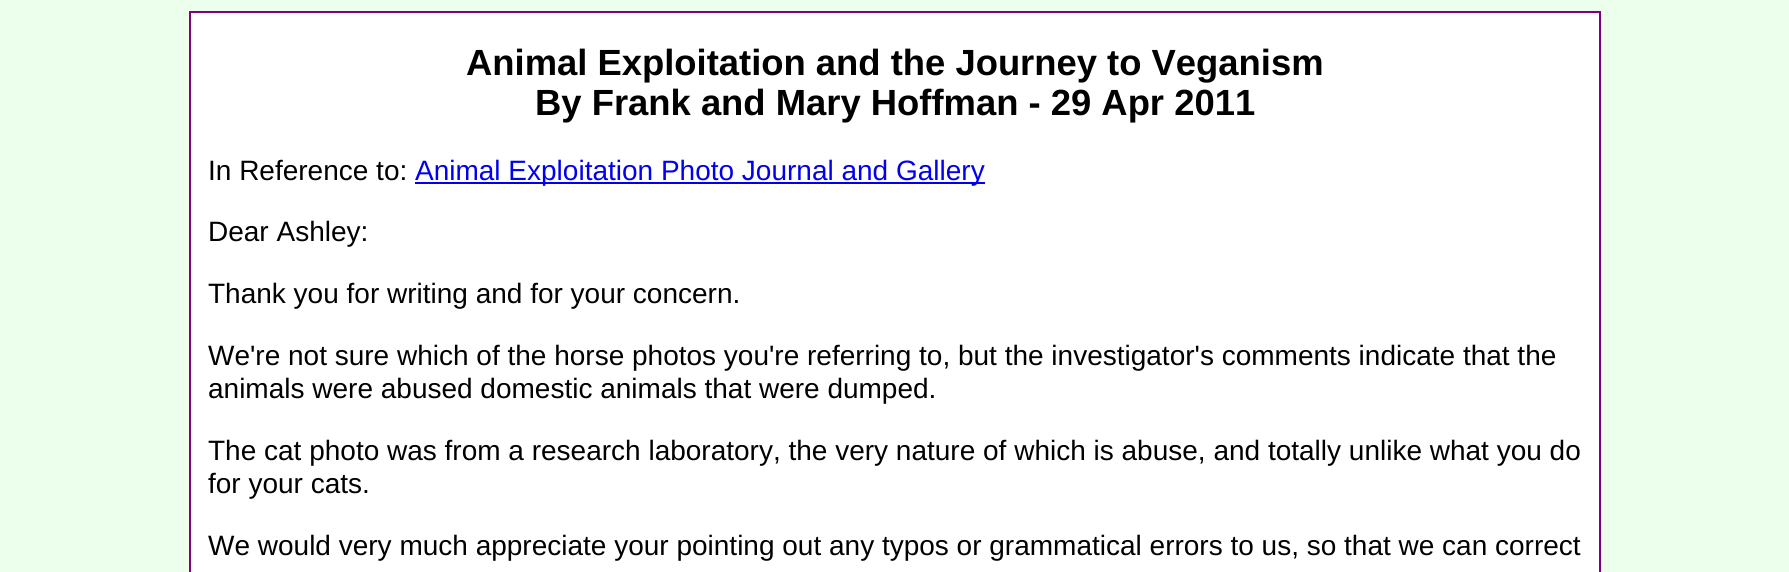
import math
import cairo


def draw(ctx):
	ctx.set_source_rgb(0.925, 1, 0.925)
	ctx.paint()
	ctx.set_source_rgb(1, 1, 1)
	ctx.rectangle(190, 12, 1410, 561)
	ctx.fill_preserve()
	ctx.set_source_rgb(0.502, 0, 0.502)
	ctx.stroke()
	ctx.select_font_face('Liberation Sans', cairo.FONT_SLANT_NORMAL, cairo.FONT_WEIGHT_BOLD)
	ctx.set_font_size(36.4)
	ctx.set_source_rgb(0, 0, 0)
	ctx.move_to(466, 75)
	ctx.show_text('Animal Exploitation and the Journey to Veganism')
	ctx.move_to(535, 115)
	ctx.show_text('By Frank and Mary Hoffman - 29 Apr 2011')
	ctx.select_font_face('Liberation Sans')
	ctx.set_font_size(28)
	ctx.move_to(208, 180)
	ctx.show_text('In Reference to:')
	ctx.set_source_rgb(0, 0, 0.933)
	ctx.rectangle(415, 182, 570, 2)
	ctx.fill()
	ctx.move_to(415, 180)
	ctx.show_text('Animal Exploitation Photo Journal and Gallery')
	ctx.set_source_rgb(0, 0, 0)
	for x, y, s in [
		(208, 241, 'Dear Ashley:'),
		(208, 303, 'Thank you for writing and for your concern.'),
		(208, 365, 'We\'re not sure which of the horse photos you\'re referring to, but the investigator\'s comments indicate that the'),
		(208, 398, 'animals were abused domestic animals that were dumped.'),
		(208, 460, 'The cat photo was from a research laboratory, the very nature of which is abuse, and totally unlike what you do'),
		(208, 493, 'for your cats.'),
		(208, 555, 'We would very much appreciate your pointing out any typos or grammatical errors to us, so that we can correct'),
	]:
		ctx.move_to(x, y)
		ctx.show_text(s)


surface = cairo.ImageSurface(cairo.FORMAT_RGB24, 1789, 572)
ctx = cairo.Context(surface)
options = cairo.FontOptions()
options.set_hint_metrics(cairo.HINT_METRICS_OFF)
options.set_hint_style(cairo.HINT_STYLE_NONE)
ctx.set_font_options(options)
ctx.set_miter_limit(4)
draw(ctx)
surface.write_to_png('image.png')
